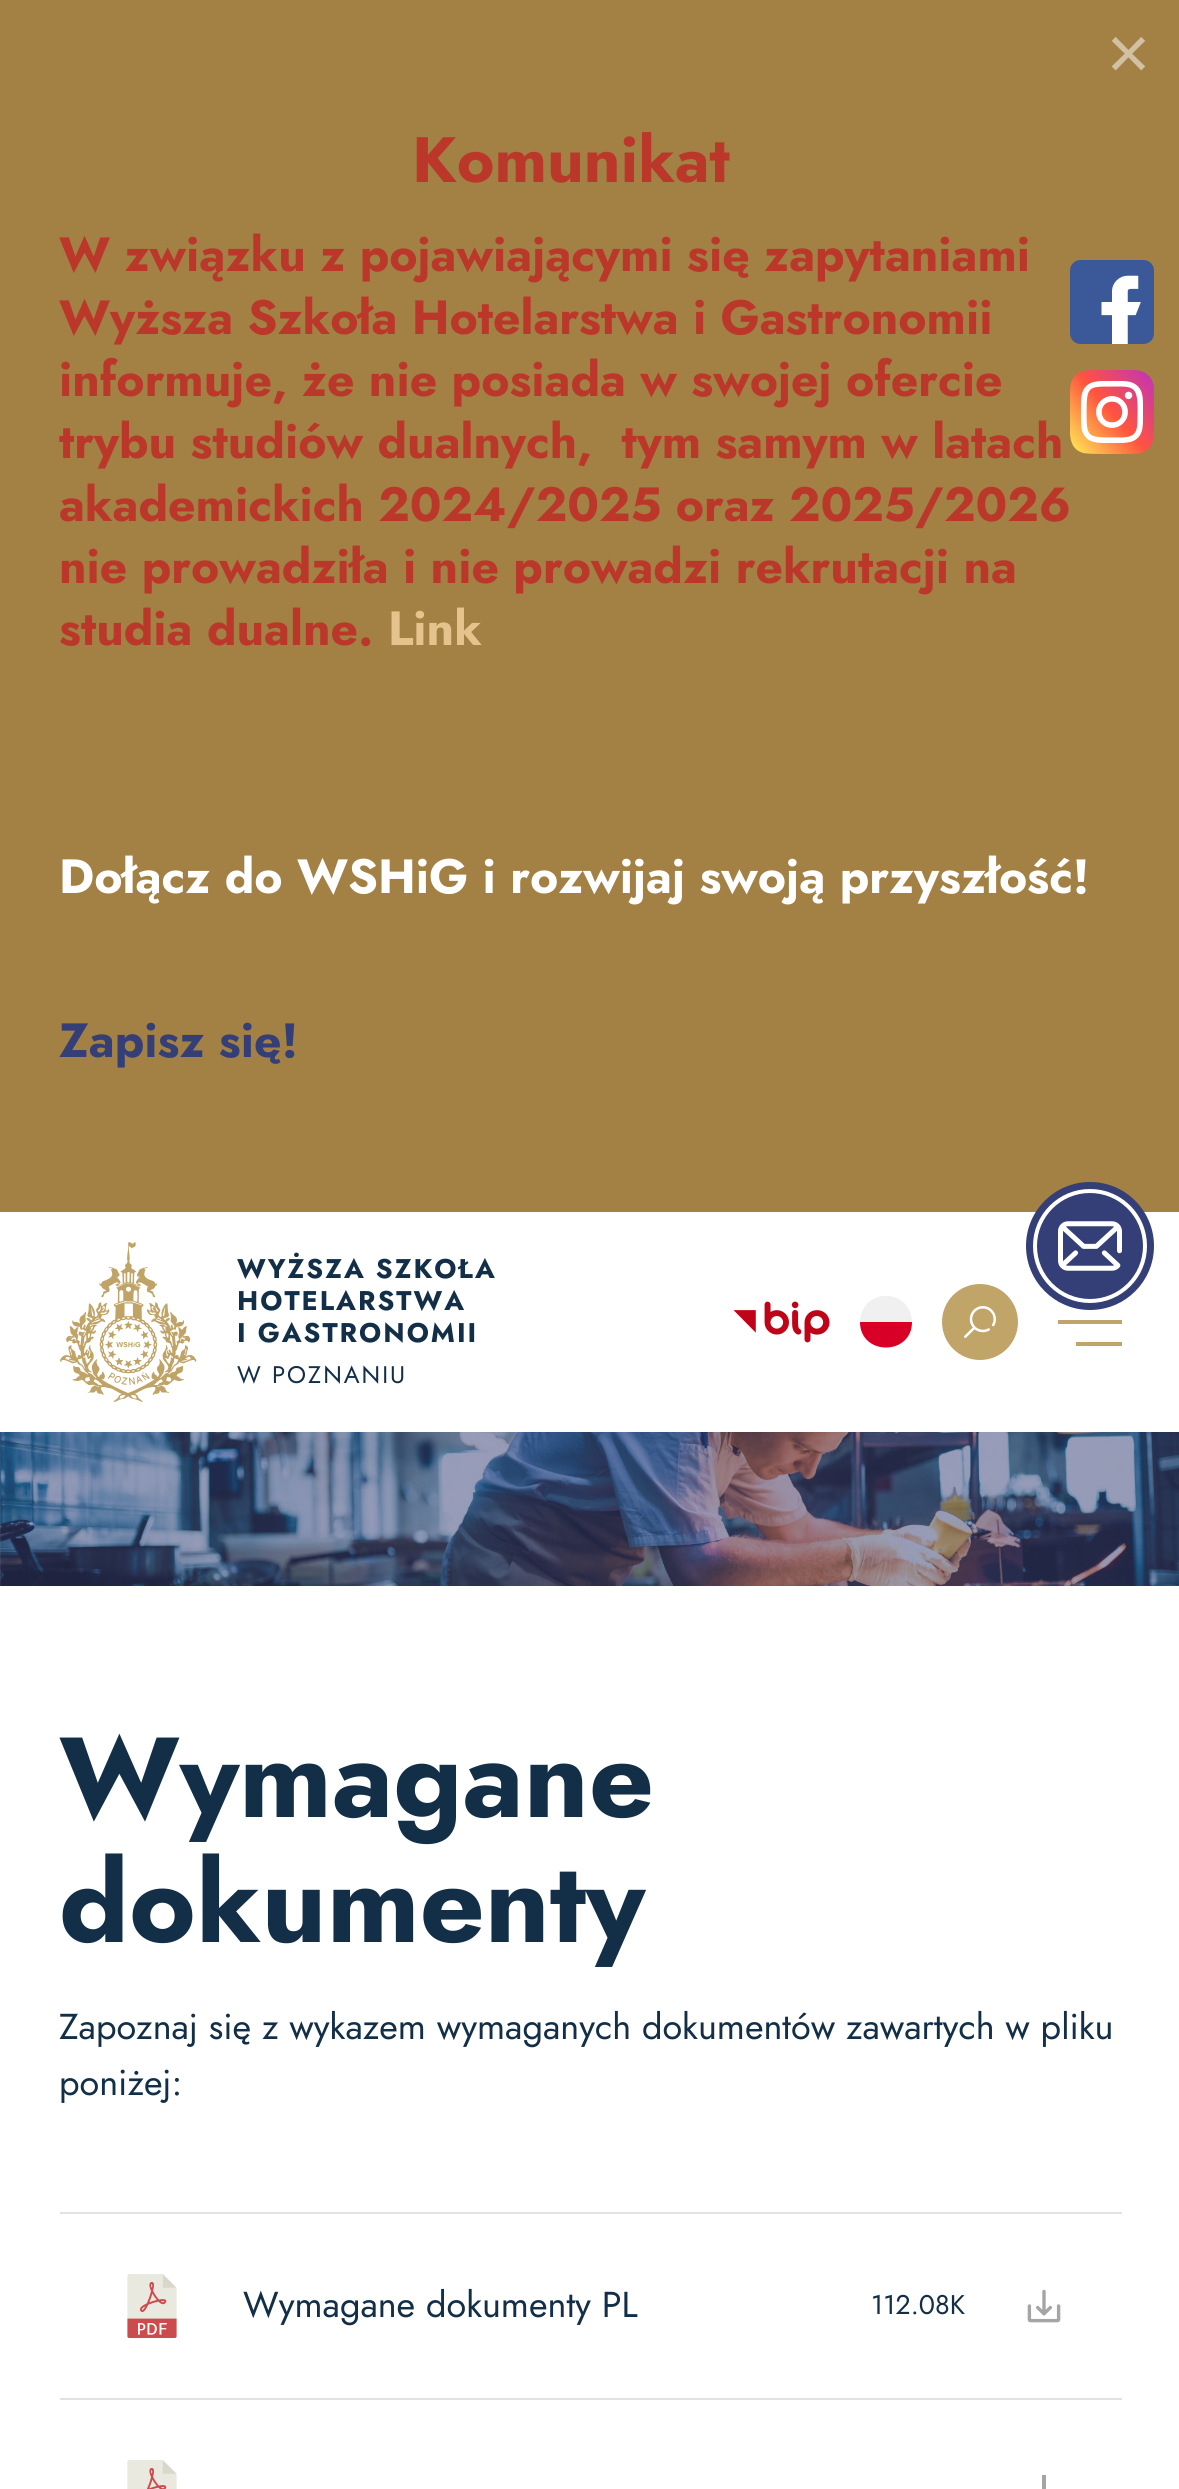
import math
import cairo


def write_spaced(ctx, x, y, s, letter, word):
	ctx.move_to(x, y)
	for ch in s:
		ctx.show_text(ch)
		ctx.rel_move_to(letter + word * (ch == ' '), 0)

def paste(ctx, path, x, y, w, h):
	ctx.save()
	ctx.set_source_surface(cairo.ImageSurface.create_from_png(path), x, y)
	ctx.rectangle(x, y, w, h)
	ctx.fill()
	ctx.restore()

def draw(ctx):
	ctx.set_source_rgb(1, 1, 1)
	ctx.paint()
	ctx.set_source_rgb(0.639, 0.502, 0.263)
	ctx.rectangle(0, 0, 1179, 1212)
	ctx.fill()
	ctx.select_font_face('Jost')
	ctx.set_font_size(72)
	ctx.set_source_rgb(0.82, 0.753, 0.631)
	ctx.move_to(1107, 72)
	ctx.show_text('×')
	ctx.select_font_face('Jost', cairo.FONT_SLANT_NORMAL, cairo.FONT_WEIGHT_BOLD)
	ctx.set_font_size(64)
	ctx.set_source_rgb(0.729, 0.216, 0.165)
	ctx.move_to(412, 182)
	ctx.show_text('Komunikat')
	ctx.set_font_size(48)
	for x, y, s in [
		(59, 271, 'W związku z pojawiającymi się zapytaniami'),
		(59, 334, 'Wyższa Szkoła Hotelarstwa i Gastronomii'),
		(59, 396, 'informuje, że nie posiada w swojej ofercie'),
		(59, 458, 'trybu studiów dualnych,  tym samym w latach'),
		(59, 521, 'akademickich 2024/2025 oraz 2025/2026'),
		(59, 583, 'nie prowadziła i nie prowadzi rekrutacji na'),
		(59, 645, 'studia dualne.'),
	]:
		ctx.move_to(x, y)
		ctx.show_text(s)
	ctx.set_source_rgb(0.898, 0.765, 0.553)
	ctx.move_to(388, 645)
	ctx.show_text('Link')
	ctx.set_source_rgb(1, 1, 1)
	ctx.move_to(59, 893)
	ctx.show_text('Dołącz do WSHiG i rozwijaj swoją przyszłość!')
	ctx.set_source_rgb(0.208, 0.247, 0.467)
	ctx.move_to(59, 1057)
	ctx.show_text('Zapisz się!')
	paste(ctx, 'media/1.png', 1070, 260, 84, 84)
	paste(ctx, 'media/2.png', 1070, 370, 84, 84)
	paste(ctx, 'media/3.png', 60, 1242, 137, 160)
	ctx.set_font_size(27)
	ctx.set_source_rgb(0.078, 0.184, 0.282)
	for x, y, s in [
		(237, 1278, 'WYŻSZA SZKOŁA'),
		(237, 1310, 'HOTELARSTWA'),
		(237, 1342, 'I GASTRONOMII'),
	]:
		write_spaced(ctx, x, y, s, 2, 0)
	ctx.select_font_face('Jost')
	ctx.set_font_size(24)
	write_spaced(ctx, 237, 1383, 'W POZNANIU', 2, 0)
	paste(ctx, 'media/4.png', 733, 1301, 97, 42)
	ctx.set_source_rgb(0.941, 0.941, 0.941)
	ctx.new_path()
	ctx.move_to(886, 1296)
	ctx.curve_to(920, 1296, 920, 1348, 886, 1348)
	ctx.curve_to(852, 1348, 852, 1296, 886, 1296)
	ctx.close_path()
	ctx.fill()
	ctx.new_path()
	ctx.move_to(886, 1296)
	ctx.curve_to(900, 1296, 912, 1308, 912, 1322)
	ctx.line_to(860, 1322)
	ctx.curve_to(860, 1308, 872, 1296, 886, 1296)
	ctx.close_path()
	ctx.fill()
	ctx.set_source_rgb(0.847, 0, 0.153)
	ctx.new_path()
	ctx.move_to(912, 1322)
	ctx.line_to(860, 1322)
	ctx.curve_to(860, 1356, 912, 1356, 912, 1322)
	ctx.close_path()
	ctx.fill()
	ctx.set_source_rgb(0.757, 0.643, 0.404)
	ctx.arc(980, 1322, 38, 0, 2 * math.pi)
	ctx.fill()
	paste(ctx, 'media/5.png', 964, 1306, 32, 32)
	ctx.rectangle(1058, 1301, 64, 1)
	ctx.rectangle(1058, 1320, 64, 4)
	ctx.rectangle(1076, 1342, 46, 4)
	ctx.fill()
	paste(ctx, 'media/6.png', 1026, 1182, 128, 128)
	paste(ctx, 'media/7.png', 0, 1432, 1179, 154)
	ctx.select_font_face('Jost', cairo.FONT_SLANT_NORMAL, cairo.FONT_WEIGHT_BOLD)
	ctx.set_font_size(113.5)
	ctx.set_source_rgb(0.078, 0.184, 0.282)
	ctx.move_to(59, 1817)
	ctx.show_text('Wymagane')
	ctx.move_to(59, 1942)
	ctx.show_text('dokumenty')
	ctx.select_font_face('Jost')
	ctx.set_font_size(36)
	ctx.move_to(59, 2039)
	ctx.show_text('Zapoznaj się z wykazem wymaganych dokumentów zawartych w pliku')
	ctx.move_to(59, 2095)
	ctx.show_text('poniżej:')
	ctx.set_source_rgb(0.886, 0.886, 0.886)
	ctx.rectangle(60, 2212, 1062, 2)
	ctx.fill()
	paste(ctx, 'media/8.png', 127, 2274, 50, 64)
	ctx.set_source_rgb(0.078, 0.184, 0.282)
	ctx.move_to(243, 2317)
	ctx.show_text('Wymagane dokumenty PL')
	ctx.set_font_size(27)
	ctx.move_to(871, 2314)
	ctx.show_text('112.08K')
	paste(ctx, 'media/9.png', 1027, 2289, 34, 34)
	ctx.set_source_rgb(0.886, 0.886, 0.886)
	ctx.rectangle(60, 2398, 1062, 2)
	ctx.fill()
	paste(ctx, 'media/10.png', 127, 2460, 50, 29)
	ctx.set_source_rgb(0.647, 0.647, 0.647)
	ctx.rectangle(1042, 2475, 4, 14)
	ctx.fill()


surface = cairo.ImageSurface(cairo.FORMAT_RGB24, 1179, 2489)
ctx = cairo.Context(surface)
options = cairo.FontOptions()
options.set_hint_metrics(cairo.HINT_METRICS_OFF)
options.set_hint_style(cairo.HINT_STYLE_NONE)
ctx.set_font_options(options)
ctx.set_miter_limit(4)
draw(ctx)
surface.write_to_png('image.png')
